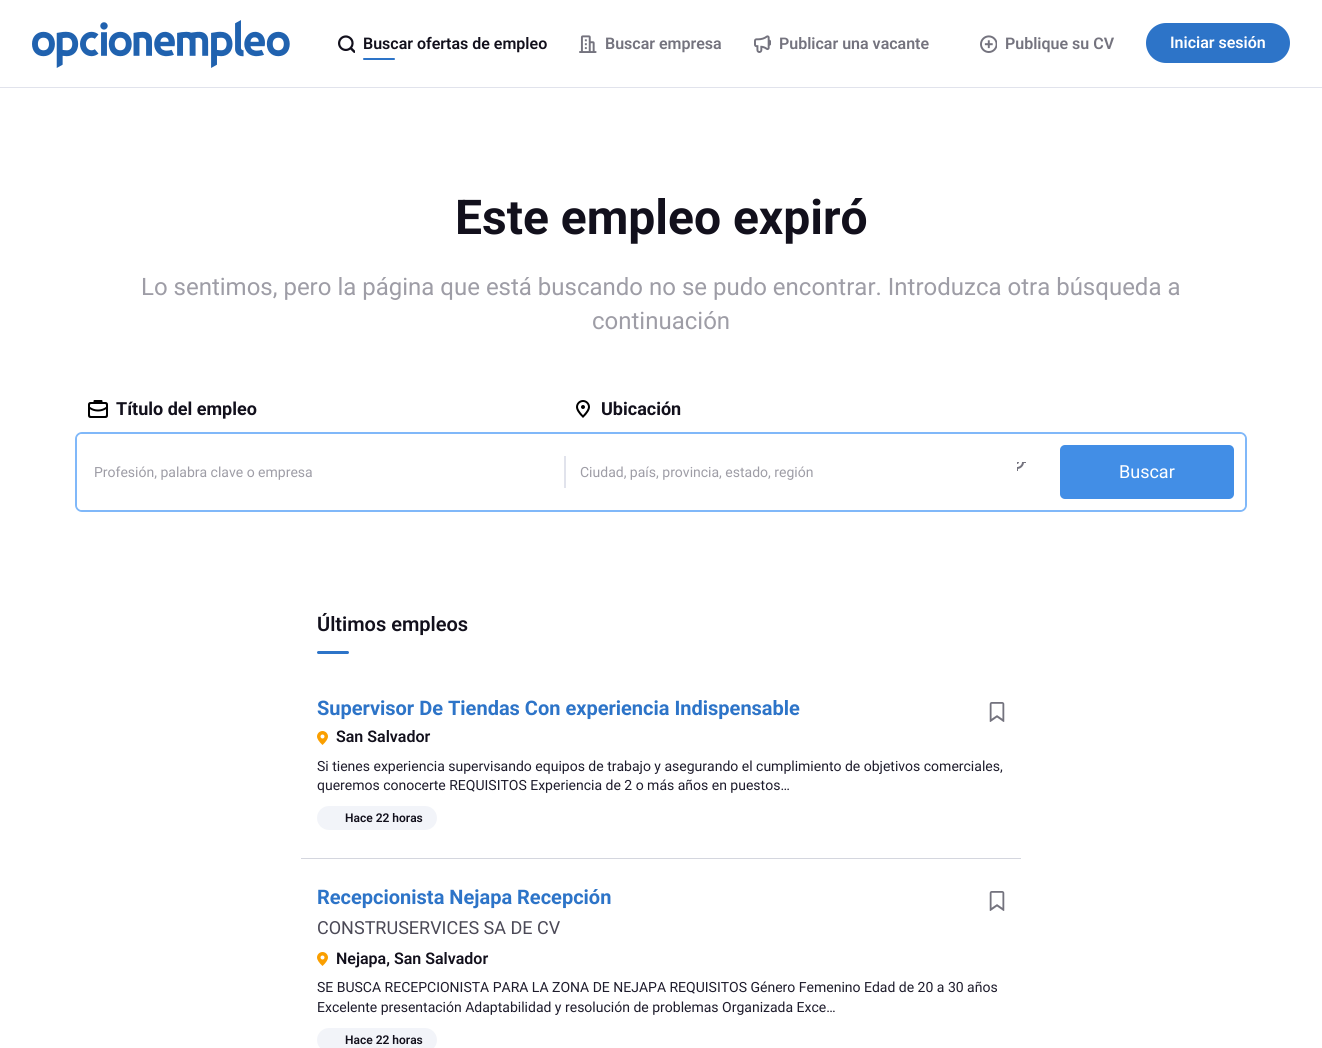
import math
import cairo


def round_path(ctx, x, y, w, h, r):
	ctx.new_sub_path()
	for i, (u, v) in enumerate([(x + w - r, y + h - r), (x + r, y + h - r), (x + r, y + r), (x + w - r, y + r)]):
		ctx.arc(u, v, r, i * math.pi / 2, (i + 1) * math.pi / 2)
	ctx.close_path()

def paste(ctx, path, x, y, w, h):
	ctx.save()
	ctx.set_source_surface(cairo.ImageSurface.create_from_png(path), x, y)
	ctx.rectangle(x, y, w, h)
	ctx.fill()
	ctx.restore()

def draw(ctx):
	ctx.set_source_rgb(1, 1, 1)
	ctx.paint()
	ctx.set_source_rgb(0.882, 0.89, 0.922)
	ctx.rectangle(0, 87, 1322, 1)
	ctx.fill()
	paste(ctx, 'media/1.png', 32, 20, 258, 48)
	paste(ctx, 'media/2.png', 338, 35, 17, 18)
	ctx.select_font_face('Roboto SemiBold')
	ctx.set_font_size(16)
	ctx.set_source_rgb(0.071, 0.063, 0.11)
	ctx.move_to(363, 49)
	ctx.show_text('Buscar ofertas de empleo')
	ctx.set_source_rgb(0.176, 0.455, 0.784)
	round_path(ctx, 363, 58, 32, 2, 1)
	ctx.fill()
	paste(ctx, 'media/3.png', 579, 35, 18, 18)
	ctx.set_source_rgb(0.455, 0.451, 0.494)
	ctx.move_to(605, 49)
	ctx.show_text('Buscar empresa')
	paste(ctx, 'media/4.png', 754, 35, 17, 18)
	ctx.move_to(779, 49)
	ctx.show_text('Publicar una vacante')
	paste(ctx, 'media/5.png', 980, 35, 17, 18)
	ctx.move_to(1005, 49)
	ctx.show_text('Publique su CV')
	ctx.set_source_rgb(0.176, 0.455, 0.784)
	round_path(ctx, 1146, 23, 144, 40, 20)
	ctx.fill()
	ctx.set_source_rgb(1, 1, 1)
	ctx.move_to(1170, 48)
	ctx.show_text('Iniciar sesión')
	ctx.select_font_face('Roboto', cairo.FONT_SLANT_NORMAL, cairo.FONT_WEIGHT_BOLD)
	ctx.set_font_size(48)
	ctx.set_source_rgb(0.071, 0.063, 0.11)
	ctx.move_to(455, 234)
	ctx.show_text('Este empleo expiró')
	ctx.select_font_face('Roboto')
	ctx.set_font_size(24)
	ctx.set_source_rgb(0.62, 0.616, 0.651)
	ctx.move_to(141, 295)
	ctx.show_text('Lo sentimos, pero la página que está buscando no se pudo encontrar. Introduzca otra búsqueda a')
	ctx.move_to(592, 329)
	ctx.show_text('continuación')
	round_path(ctx, 76, 433, 1170, 78, 6)
	ctx.set_source_rgb(0.502, 0.722, 0.973)
	ctx.stroke()
	round_path(ctx, 77.5, 434.5, 1167, 75, 4.5)
	ctx.set_source_rgb(1, 1, 1)
	ctx.set_line_width(1)
	ctx.stroke()
	paste(ctx, 'media/6.png', 88, 400, 20, 18)
	ctx.select_font_face('Roboto', cairo.FONT_SLANT_NORMAL, cairo.FONT_WEIGHT_BOLD)
	ctx.set_font_size(18)
	ctx.set_source_rgb(0.071, 0.063, 0.11)
	ctx.move_to(116, 415)
	ctx.show_text('Título del empleo')
	ctx.select_font_face('Roboto')
	ctx.set_font_size(14)
	ctx.set_source_rgb(0.62, 0.616, 0.651)
	ctx.move_to(94, 477)
	ctx.show_text('Profesión, palabra clave o empresa')
	paste(ctx, 'media/7.png', 576, 400, 14, 18)
	ctx.select_font_face('Roboto', cairo.FONT_SLANT_NORMAL, cairo.FONT_WEIGHT_BOLD)
	ctx.set_font_size(18)
	ctx.set_source_rgb(0.071, 0.063, 0.11)
	ctx.move_to(601, 415)
	ctx.show_text('Ubicación')
	ctx.set_source_rgb(0.882, 0.89, 0.922)
	ctx.rectangle(564, 456, 2, 32)
	ctx.fill()
	ctx.select_font_face('Roboto')
	ctx.set_font_size(14)
	ctx.set_source_rgb(0.62, 0.616, 0.651)
	ctx.move_to(580, 477)
	ctx.show_text('Ciudad, país, provincia, estado, región')
	paste(ctx, 'media/8.png', 1017, 462, 9, 9)
	ctx.set_source_rgb(0.259, 0.557, 0.902)
	round_path(ctx, 1060, 445, 174, 54, 5)
	ctx.fill()
	ctx.set_font_size(18)
	ctx.set_source_rgb(1, 1, 1)
	ctx.move_to(1119, 478)
	ctx.show_text('Buscar')
	ctx.select_font_face('Roboto SemiBold')
	ctx.set_font_size(20)
	ctx.set_source_rgb(0.071, 0.063, 0.11)
	ctx.move_to(317, 631)
	ctx.show_text('Últimos empleos')
	ctx.set_source_rgb(0.176, 0.455, 0.784)
	round_path(ctx, 317, 651, 32, 3, 1.5)
	ctx.fill()
	ctx.set_source_rgb(0.831, 0.839, 0.871)
	ctx.rectangle(301, 858, 720, 1)
	ctx.fill()
	ctx.select_font_face('Roboto', cairo.FONT_SLANT_NORMAL, cairo.FONT_WEIGHT_BOLD)
	ctx.set_source_rgb(0.176, 0.455, 0.784)
	ctx.move_to(317, 715)
	ctx.show_text('Supervisor De Tiendas Con experiencia Indispensable')
	paste(ctx, 'media/9.png', 989, 702, 16, 20)
	paste(ctx, 'media/10.png', 317, 731, 11, 14)
	ctx.select_font_face('Roboto SemiBold')
	ctx.set_font_size(16)
	ctx.set_source_rgb(0.071, 0.063, 0.11)
	ctx.move_to(336, 742)
	ctx.show_text('San Salvador')
	ctx.select_font_face('Roboto')
	ctx.set_font_size(14)
	ctx.set_source_rgb(0.118, 0.11, 0.173)
	ctx.move_to(317, 771)
	ctx.show_text('Si tienes experiencia supervisando equipos de trabajo y asegurando el cumplimiento de objetivos comerciales,')
	ctx.move_to(317, 790)
	ctx.show_text('queremos conocerte REQUISITOS Experiencia de 2 o más años en puestos…')
	ctx.set_source_rgb(0.949, 0.957, 0.973)
	round_path(ctx, 317, 806, 120, 24, 12)
	ctx.fill()
	ctx.select_font_face('Roboto SemiBold')
	ctx.set_font_size(12)
	ctx.set_source_rgb(0.071, 0.063, 0.11)
	ctx.move_to(345, 822)
	ctx.show_text('Hace 22 horas')
	ctx.select_font_face('Roboto', cairo.FONT_SLANT_NORMAL, cairo.FONT_WEIGHT_BOLD)
	ctx.set_font_size(20)
	ctx.set_source_rgb(0.176, 0.455, 0.784)
	ctx.move_to(317, 904)
	ctx.show_text('Recepcionista Nejapa Recepción')
	paste(ctx, 'media/9.png', 989, 891, 16, 20)
	ctx.select_font_face('Roboto')
	ctx.set_font_size(18)
	ctx.set_source_rgb(0.294, 0.286, 0.337)
	ctx.move_to(317, 934)
	ctx.show_text('CONSTRUSERVICES SA DE CV')
	paste(ctx, 'media/10.png', 317, 952, 11, 14)
	ctx.select_font_face('Roboto SemiBold')
	ctx.set_font_size(16)
	ctx.set_source_rgb(0.071, 0.063, 0.11)
	ctx.move_to(336, 964)
	ctx.show_text('Nejapa, San Salvador')
	ctx.select_font_face('Roboto')
	ctx.set_font_size(14)
	ctx.set_source_rgb(0.118, 0.11, 0.173)
	ctx.move_to(317, 992)
	ctx.show_text('SE BUSCA RECEPCIONISTA PARA LA ZONA DE NEJAPA REQUISITOS Género Femenino Edad de 20 a 30 años')
	ctx.move_to(317, 1012)
	ctx.show_text('Excelente presentación Adaptabilidad y resolución de problemas Organizada Exce…')
	ctx.set_source_rgb(0.949, 0.957, 0.973)
	round_path(ctx, 317, 1028, 120, 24, 12)
	ctx.fill()
	ctx.select_font_face('Roboto SemiBold')
	ctx.set_font_size(12)
	ctx.set_source_rgb(0.071, 0.063, 0.11)
	ctx.move_to(345, 1044)
	ctx.show_text('Hace 22 horas')


surface = cairo.ImageSurface(cairo.FORMAT_RGB24, 1322, 1048)
ctx = cairo.Context(surface)
options = cairo.FontOptions()
options.set_hint_metrics(cairo.HINT_METRICS_OFF)
options.set_hint_style(cairo.HINT_STYLE_NONE)
ctx.set_font_options(options)
ctx.set_miter_limit(4)
draw(ctx)
surface.write_to_png('image.png')
